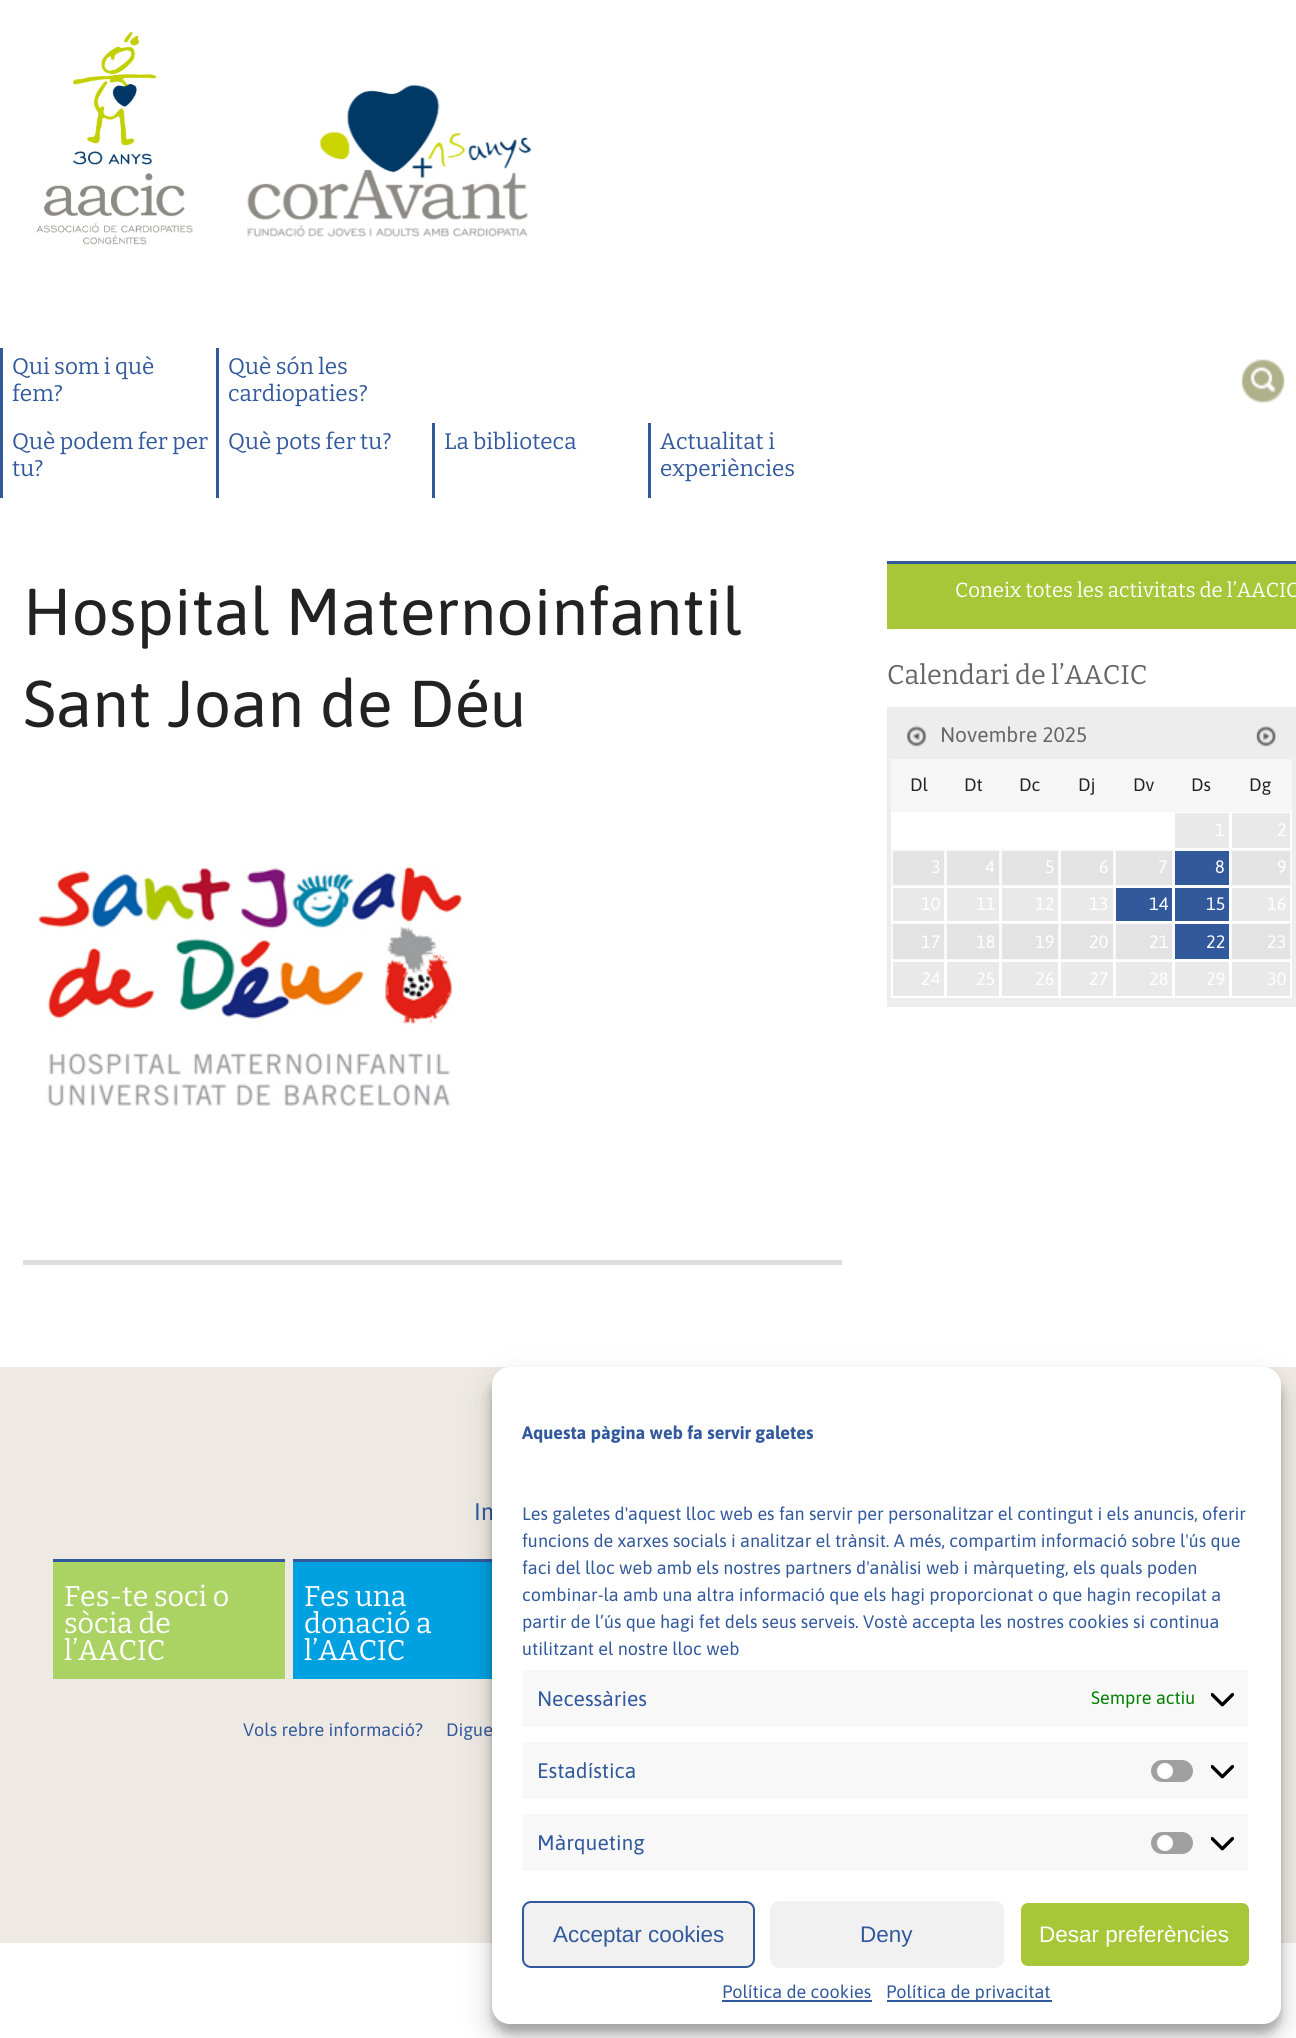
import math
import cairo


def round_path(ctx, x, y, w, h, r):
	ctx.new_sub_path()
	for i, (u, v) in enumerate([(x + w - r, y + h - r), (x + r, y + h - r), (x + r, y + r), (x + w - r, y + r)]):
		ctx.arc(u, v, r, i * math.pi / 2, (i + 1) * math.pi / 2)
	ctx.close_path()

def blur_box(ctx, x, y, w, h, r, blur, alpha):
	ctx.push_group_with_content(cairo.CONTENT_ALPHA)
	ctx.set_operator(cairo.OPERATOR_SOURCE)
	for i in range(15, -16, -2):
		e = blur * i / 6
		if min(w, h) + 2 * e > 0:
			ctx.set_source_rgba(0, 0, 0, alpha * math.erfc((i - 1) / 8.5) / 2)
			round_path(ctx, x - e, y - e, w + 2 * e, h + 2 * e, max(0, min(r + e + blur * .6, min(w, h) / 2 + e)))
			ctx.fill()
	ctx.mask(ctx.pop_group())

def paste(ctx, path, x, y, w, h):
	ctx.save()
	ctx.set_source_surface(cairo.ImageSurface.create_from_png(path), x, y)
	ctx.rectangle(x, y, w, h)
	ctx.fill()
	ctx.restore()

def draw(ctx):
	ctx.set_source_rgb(1, 1, 1)
	ctx.paint()
	paste(ctx, 'media/1.png', 36, 32, 157, 213)
	paste(ctx, 'media/2.png', 247, 84, 285, 153)
	paste(ctx, 'media/3.png', 1241, 359, 44, 44)
	ctx.set_source_rgb(0.192, 0.349, 0.612)
	ctx.rectangle(0, 348, 3, 150)
	ctx.fill()
	ctx.select_font_face('Bitter')
	ctx.set_font_size(22.5)
	ctx.move_to(12, 374)
	ctx.show_text('Qui som i què')
	ctx.move_to(12, 401)
	ctx.show_text('fem?')
	ctx.rectangle(216, 348, 3, 150)
	ctx.fill()
	for x, y, s in [
		(228, 374, 'Què són les'),
		(228, 401, 'cardiopaties?'),
		(12, 449, 'Què podem fer per'),
		(12, 476, 'tu?'),
		(228, 449, 'Què pots fer tu?'),
	]:
		ctx.move_to(x, y)
		ctx.show_text(s)
	ctx.rectangle(432, 423, 3, 75)
	ctx.fill()
	ctx.move_to(444, 449)
	ctx.show_text('La biblioteca')
	ctx.rectangle(648, 423, 3, 75)
	ctx.fill()
	ctx.move_to(660, 449)
	ctx.show_text('Actualitat i')
	ctx.move_to(660, 476)
	ctx.show_text('experiències')
	ctx.select_font_face('Asap')
	ctx.set_font_size(66)
	ctx.set_source_rgb(0.133, 0.133, 0.133)
	ctx.move_to(23, 635)
	ctx.show_text('Hospital Maternoinfantil')
	ctx.move_to(23, 727)
	ctx.show_text('Sant Joan de Déu')
	paste(ctx, 'media/4.png', 38, 866, 425, 240)
	ctx.set_source_rgb(0.867, 0.867, 0.867)
	ctx.rectangle(23, 1260, 819, 5)
	ctx.fill()
	ctx.set_source_rgb(0.655, 0.776, 0.22)
	ctx.rectangle(887, 564, 409, 65)
	ctx.fill()
	ctx.set_source_rgb(0.192, 0.349, 0.612)
	ctx.rectangle(887, 561, 409, 3)
	ctx.fill()
	ctx.select_font_face('Bitter')
	ctx.set_font_size(20.4)
	ctx.set_source_rgb(1, 1, 1)
	ctx.move_to(955, 597)
	ctx.show_text('Coneix totes les activitats de l’AACIC')
	ctx.set_font_size(27)
	ctx.set_source_rgb(0.4, 0.4, 0.4)
	ctx.move_to(887, 684)
	ctx.show_text('Calendari de l’AACIC')
	ctx.set_source_rgb(0.929, 0.929, 0.929)
	ctx.rectangle(887, 707, 409, 300)
	ctx.fill()
	paste(ctx, 'media/5.png', 906, 725, 21, 22)
	ctx.select_font_face('Asap')
	ctx.set_font_size(21)
	ctx.set_source_rgb(0.4, 0.4, 0.4)
	ctx.move_to(940, 742)
	ctx.show_text('Novembre 2025')
	paste(ctx, 'media/6.png', 1256, 725, 21, 22)
	ctx.set_source_rgb(1, 1, 1)
	ctx.rectangle(891, 812, 401, 186)
	ctx.fill()
	ctx.set_source_rgb(0.961, 0.961, 0.961)
	ctx.rectangle(891, 759, 401, 53)
	ctx.fill()
	ctx.set_font_size(18)
	ctx.set_source_rgb(0.133, 0.133, 0.133)
	for x, y, s in [
		(910, 791, 'Dl'),
		(964, 791, 'Dt'),
		(1019, 791, 'Dc'),
		(1078, 791, 'Dj'),
		(1133, 791, 'Dv'),
		(1191, 791, 'Ds'),
		(1249, 791, 'Dg'),
	]:
		ctx.move_to(x, y)
		ctx.show_text(s)
	ctx.set_source_rgb(0.914, 0.914, 0.914)
	ctx.rectangle(1175, 813, 54, 35)
	ctx.fill()
	ctx.set_source_rgb(1, 1, 1)
	ctx.move_to(1215, 836)
	ctx.show_text('1')
	ctx.set_source_rgb(0.914, 0.914, 0.914)
	ctx.rectangle(1232, 813, 58, 35)
	ctx.fill()
	ctx.set_source_rgb(1, 1, 1)
	ctx.move_to(1277, 836)
	ctx.show_text('2')
	ctx.set_source_rgb(0.976, 0.976, 0.976)
	ctx.rectangle(891, 849, 401, 38)
	ctx.fill()
	ctx.set_source_rgb(0.89, 0.89, 0.89)
	ctx.rectangle(893, 851, 51, 34)
	ctx.fill()
	ctx.set_source_rgb(1, 1, 1)
	ctx.move_to(931, 873)
	ctx.show_text('3')
	ctx.set_source_rgb(0.89, 0.89, 0.89)
	ctx.rectangle(947, 851, 52, 34)
	ctx.fill()
	ctx.set_source_rgb(1, 1, 1)
	ctx.move_to(985, 873)
	ctx.show_text('4')
	ctx.set_source_rgb(0.89, 0.89, 0.89)
	ctx.rectangle(1002, 851, 56, 34)
	ctx.fill()
	ctx.set_source_rgb(1, 1, 1)
	ctx.move_to(1045, 873)
	ctx.show_text('5')
	ctx.set_source_rgb(0.89, 0.89, 0.89)
	ctx.rectangle(1061, 851, 52, 34)
	ctx.fill()
	ctx.set_source_rgb(1, 1, 1)
	ctx.move_to(1099, 873)
	ctx.show_text('6')
	ctx.set_source_rgb(0.89, 0.89, 0.89)
	ctx.rectangle(1116, 851, 56, 34)
	ctx.fill()
	ctx.set_source_rgb(1, 1, 1)
	ctx.move_to(1158, 873)
	ctx.show_text('7')
	ctx.set_source_rgb(0.192, 0.349, 0.612)
	ctx.rectangle(1175, 851, 54, 34)
	ctx.fill()
	ctx.set_source_rgb(1, 1, 1)
	ctx.move_to(1215, 873)
	ctx.show_text('8')
	ctx.set_source_rgb(0.89, 0.89, 0.89)
	ctx.rectangle(1232, 851, 58, 34)
	ctx.fill()
	ctx.set_source_rgb(1, 1, 1)
	ctx.move_to(1277, 873)
	ctx.show_text('9')
	ctx.set_source_rgb(0.914, 0.914, 0.914)
	ctx.rectangle(893, 888, 51, 33)
	ctx.fill()
	ctx.set_source_rgb(1, 1, 1)
	ctx.move_to(921, 910)
	ctx.show_text('10')
	ctx.set_source_rgb(0.914, 0.914, 0.914)
	ctx.rectangle(947, 888, 52, 33)
	ctx.fill()
	ctx.set_source_rgb(1, 1, 1)
	ctx.move_to(976, 910)
	ctx.show_text('11')
	ctx.set_source_rgb(0.914, 0.914, 0.914)
	ctx.rectangle(1002, 888, 56, 33)
	ctx.fill()
	ctx.set_source_rgb(1, 1, 1)
	ctx.move_to(1035, 910)
	ctx.show_text('12')
	ctx.set_source_rgb(0.914, 0.914, 0.914)
	ctx.rectangle(1061, 888, 52, 33)
	ctx.fill()
	ctx.set_source_rgb(1, 1, 1)
	ctx.move_to(1089, 910)
	ctx.show_text('13')
	ctx.set_source_rgb(0.192, 0.349, 0.612)
	ctx.rectangle(1116, 888, 56, 33)
	ctx.fill()
	ctx.set_source_rgb(1, 1, 1)
	ctx.move_to(1149, 910)
	ctx.show_text('14')
	ctx.set_source_rgb(0.192, 0.349, 0.612)
	ctx.rectangle(1175, 888, 54, 33)
	ctx.fill()
	ctx.set_source_rgb(1, 1, 1)
	ctx.move_to(1206, 910)
	ctx.show_text('15')
	ctx.set_source_rgb(0.914, 0.914, 0.914)
	ctx.rectangle(1232, 888, 58, 33)
	ctx.fill()
	ctx.set_source_rgb(1, 1, 1)
	ctx.move_to(1267, 910)
	ctx.show_text('16')
	ctx.set_source_rgb(0.976, 0.976, 0.976)
	ctx.rectangle(891, 923, 401, 37)
	ctx.fill()
	ctx.set_source_rgb(0.89, 0.89, 0.89)
	ctx.rectangle(893, 924, 51, 35)
	ctx.fill()
	ctx.set_source_rgb(1, 1, 1)
	ctx.move_to(921, 948)
	ctx.show_text('17')
	ctx.set_source_rgb(0.89, 0.89, 0.89)
	ctx.rectangle(947, 924, 52, 35)
	ctx.fill()
	ctx.set_source_rgb(1, 1, 1)
	ctx.move_to(976, 948)
	ctx.show_text('18')
	ctx.set_source_rgb(0.89, 0.89, 0.89)
	ctx.rectangle(1002, 924, 56, 35)
	ctx.fill()
	ctx.set_source_rgb(1, 1, 1)
	ctx.move_to(1035, 948)
	ctx.show_text('19')
	ctx.set_source_rgb(0.89, 0.89, 0.89)
	ctx.rectangle(1061, 924, 52, 35)
	ctx.fill()
	ctx.set_source_rgb(1, 1, 1)
	ctx.move_to(1089, 948)
	ctx.show_text('20')
	ctx.set_source_rgb(0.89, 0.89, 0.89)
	ctx.rectangle(1116, 924, 56, 35)
	ctx.fill()
	ctx.set_source_rgb(1, 1, 1)
	ctx.move_to(1149, 948)
	ctx.show_text('21')
	ctx.set_source_rgb(0.192, 0.349, 0.612)
	ctx.rectangle(1175, 924, 54, 35)
	ctx.fill()
	ctx.set_source_rgb(1, 1, 1)
	ctx.move_to(1206, 948)
	ctx.show_text('22')
	ctx.set_source_rgb(0.89, 0.89, 0.89)
	ctx.rectangle(1232, 924, 58, 35)
	ctx.fill()
	ctx.set_source_rgb(1, 1, 1)
	ctx.move_to(1267, 948)
	ctx.show_text('23')
	ctx.set_source_rgb(0.914, 0.914, 0.914)
	ctx.rectangle(893, 962, 51, 34)
	ctx.fill()
	ctx.set_source_rgb(1, 1, 1)
	ctx.move_to(921, 985)
	ctx.show_text('24')
	ctx.set_source_rgb(0.914, 0.914, 0.914)
	ctx.rectangle(947, 962, 52, 34)
	ctx.fill()
	ctx.set_source_rgb(1, 1, 1)
	ctx.move_to(976, 985)
	ctx.show_text('25')
	ctx.set_source_rgb(0.914, 0.914, 0.914)
	ctx.rectangle(1002, 962, 56, 34)
	ctx.fill()
	ctx.set_source_rgb(1, 1, 1)
	ctx.move_to(1035, 985)
	ctx.show_text('26')
	ctx.set_source_rgb(0.914, 0.914, 0.914)
	ctx.rectangle(1061, 962, 52, 34)
	ctx.fill()
	ctx.set_source_rgb(1, 1, 1)
	ctx.move_to(1089, 985)
	ctx.show_text('27')
	ctx.set_source_rgb(0.914, 0.914, 0.914)
	ctx.rectangle(1116, 962, 56, 34)
	ctx.fill()
	ctx.set_source_rgb(1, 1, 1)
	ctx.move_to(1149, 985)
	ctx.show_text('28')
	ctx.set_source_rgb(0.914, 0.914, 0.914)
	ctx.rectangle(1175, 962, 54, 34)
	ctx.fill()
	ctx.set_source_rgb(1, 1, 1)
	ctx.move_to(1206, 985)
	ctx.show_text('29')
	ctx.set_source_rgb(0.914, 0.914, 0.914)
	ctx.rectangle(1232, 962, 58, 34)
	ctx.fill()
	ctx.set_source_rgb(1, 1, 1)
	ctx.move_to(1267, 985)
	ctx.show_text('30')
	ctx.set_source_rgb(0.933, 0.914, 0.89)
	ctx.rectangle(0, 1367, 1296, 576)
	ctx.fill()
	ctx.set_font_size(24)
	ctx.set_source_rgb(0.192, 0.349, 0.612)
	ctx.move_to(474, 1520)
	ctx.show_text('Im')
	ctx.set_source_rgb(0.671, 0.827, 0.392)
	ctx.rectangle(53, 1562, 232, 117)
	ctx.fill()
	ctx.set_source_rgb(0.192, 0.349, 0.612)
	ctx.rectangle(53, 1559, 232, 3)
	ctx.fill()
	ctx.select_font_face('Bitter')
	ctx.set_font_size(28.5)
	ctx.set_source_rgb(1, 1, 1)
	for x, y, s in [
		(64, 1606, 'Fes-te soci o'),
		(64, 1633, 'sòcia de'),
		(64, 1660, 'l’AACIC'),
	]:
		ctx.move_to(x, y)
		ctx.show_text(s)
	ctx.set_source_rgb(0, 0.631, 0.882)
	ctx.rectangle(293, 1562, 199, 117)
	ctx.fill()
	ctx.set_source_rgb(0.192, 0.349, 0.612)
	ctx.rectangle(293, 1559, 199, 3)
	ctx.fill()
	ctx.set_source_rgb(1, 1, 1)
	for x, y, s in [
		(304, 1606, 'Fes una'),
		(304, 1633, 'donació a'),
		(304, 1660, 'l’AACIC'),
	]:
		ctx.move_to(x, y)
		ctx.show_text(s)
	ctx.select_font_face('Asap')
	ctx.set_font_size(18)
	ctx.set_source_rgb(0.192, 0.349, 0.612)
	ctx.move_to(243, 1736)
	ctx.show_text('Vols rebre informació?')
	ctx.move_to(446, 1736)
	ctx.show_text('Digue')
	ctx.set_source_rgb(0, 0, 0)
	blur_box(ctx, 492, 1376, 789, 657, 18, 4.5, 0.23)
	blur_box(ctx, 492, 1382, 789, 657, 18, 15, 0.19)
	ctx.set_source_rgb(1, 1, 1)
	round_path(ctx, 492, 1367, 789, 657, 18)
	ctx.fill()
	ctx.select_font_face('Asap', cairo.FONT_SLANT_NORMAL, cairo.FONT_WEIGHT_BOLD)
	ctx.set_source_rgb(0.192, 0.349, 0.612)
	ctx.move_to(522, 1439)
	ctx.show_text('Aquesta pàgina web fa servir galetes')
	ctx.select_font_face('Asap')
	for x, y, s in [
		(522, 1520, 'Les galetes d\'aquest lloc web es fan servir per personalitzar el contingut i els anuncis, oferir'),
		(522, 1547, 'funcions de xarxes socials i analitzar el trànsit. A més, compartim informació sobre l\'ús que'),
		(522, 1574, 'faci del lloc web amb els nostres partners d\'anàlisi web i màrqueting, els quals poden'),
		(522, 1601, 'combinar-la amb una altra informació que els hagi proporcionat o que hagin recopilat a'),
		(522, 1628, 'partir de l’ús que hagi fet dels seus serveis. Vostè accepta les nostres cookies si continua'),
		(522, 1655, 'utilitzant el nostre lloc web'),
	]:
		ctx.move_to(x, y)
		ctx.show_text(s)
	ctx.set_source_rgb(0.969, 0.969, 0.969)
	ctx.rectangle(522, 1670, 726, 57)
	ctx.fill()
	ctx.set_font_size(21)
	ctx.set_source_rgb(0.192, 0.349, 0.612)
	ctx.move_to(537, 1706)
	ctx.show_text('Necessàries')
	ctx.set_font_size(18)
	ctx.set_source_rgb(0, 0.502, 0)
	ctx.move_to(1091, 1704)
	ctx.show_text('Sempre actiu')
	paste(ctx, 'media/7.png', 1211, 1693, 24, 14)
	ctx.set_source_rgb(0.969, 0.969, 0.969)
	ctx.rectangle(522, 1742, 726, 57)
	ctx.fill()
	ctx.set_font_size(21)
	ctx.set_source_rgb(0.192, 0.349, 0.612)
	ctx.move_to(537, 1778)
	ctx.show_text('Estadística')
	ctx.set_source_rgb(0.627, 0.627, 0.627)
	round_path(ctx, 1151, 1760, 42, 22, 11)
	ctx.fill()
	ctx.set_source_rgb(1, 1, 1)
	ctx.arc(1165, 1771, 8, 0, 2 * math.pi)
	ctx.fill()
	paste(ctx, 'media/7.png', 1211, 1765, 24, 14)
	ctx.set_source_rgb(0.969, 0.969, 0.969)
	ctx.rectangle(522, 1814, 726, 57)
	ctx.fill()
	ctx.set_source_rgb(0.192, 0.349, 0.612)
	ctx.move_to(537, 1850)
	ctx.show_text('Màrqueting')
	ctx.set_source_rgb(0.627, 0.627, 0.627)
	round_path(ctx, 1151, 1832, 42, 22, 11)
	ctx.fill()
	ctx.set_source_rgb(1, 1, 1)
	ctx.arc(1165, 1843, 8, 0, 2 * math.pi)
	ctx.fill()
	paste(ctx, 'media/7.png', 1211, 1837, 24, 14)
	ctx.set_source_rgb(0.945, 0.945, 0.945)
	round_path(ctx, 523, 1902, 231, 65, 8)
	ctx.fill_preserve()
	ctx.set_source_rgb(0.192, 0.349, 0.612)
	ctx.stroke()
	ctx.select_font_face('Liberation Sans')
	ctx.set_font_size(22.5)
	ctx.move_to(553, 1942)
	ctx.show_text('Acceptar cookies')
	ctx.set_source_rgb(0.945, 0.945, 0.945)
	round_path(ctx, 771, 1902, 232, 65, 8)
	ctx.fill_preserve()
	ctx.stroke()
	ctx.set_source_rgb(0.192, 0.349, 0.612)
	ctx.move_to(860, 1942)
	ctx.show_text('Deny')
	ctx.set_source_rgb(0.655, 0.776, 0.22)
	round_path(ctx, 1020, 1902, 230, 65, 8)
	ctx.fill_preserve()
	ctx.set_source_rgb(1, 1, 1)
	ctx.stroke()
	ctx.move_to(1039, 1942)
	ctx.show_text('Desar preferències')
	ctx.select_font_face('Asap')
	ctx.set_font_size(18)
	ctx.set_source_rgb(0.192, 0.349, 0.612)
	ctx.move_to(722, 1998)
	ctx.show_text('Política de cookies')
	ctx.rectangle(722, 2000, 150, 2)
	ctx.fill()
	ctx.rectangle(887, 2000, 165, 2)
	ctx.fill()
	ctx.move_to(886, 1998)
	ctx.show_text('Política de privacitat')


surface = cairo.ImageSurface(cairo.FORMAT_RGB24, 1296, 2038)
ctx = cairo.Context(surface)
options = cairo.FontOptions()
options.set_hint_metrics(cairo.HINT_METRICS_OFF)
options.set_hint_style(cairo.HINT_STYLE_NONE)
ctx.set_font_options(options)
ctx.set_miter_limit(4)
draw(ctx)
surface.write_to_png('image.png')
